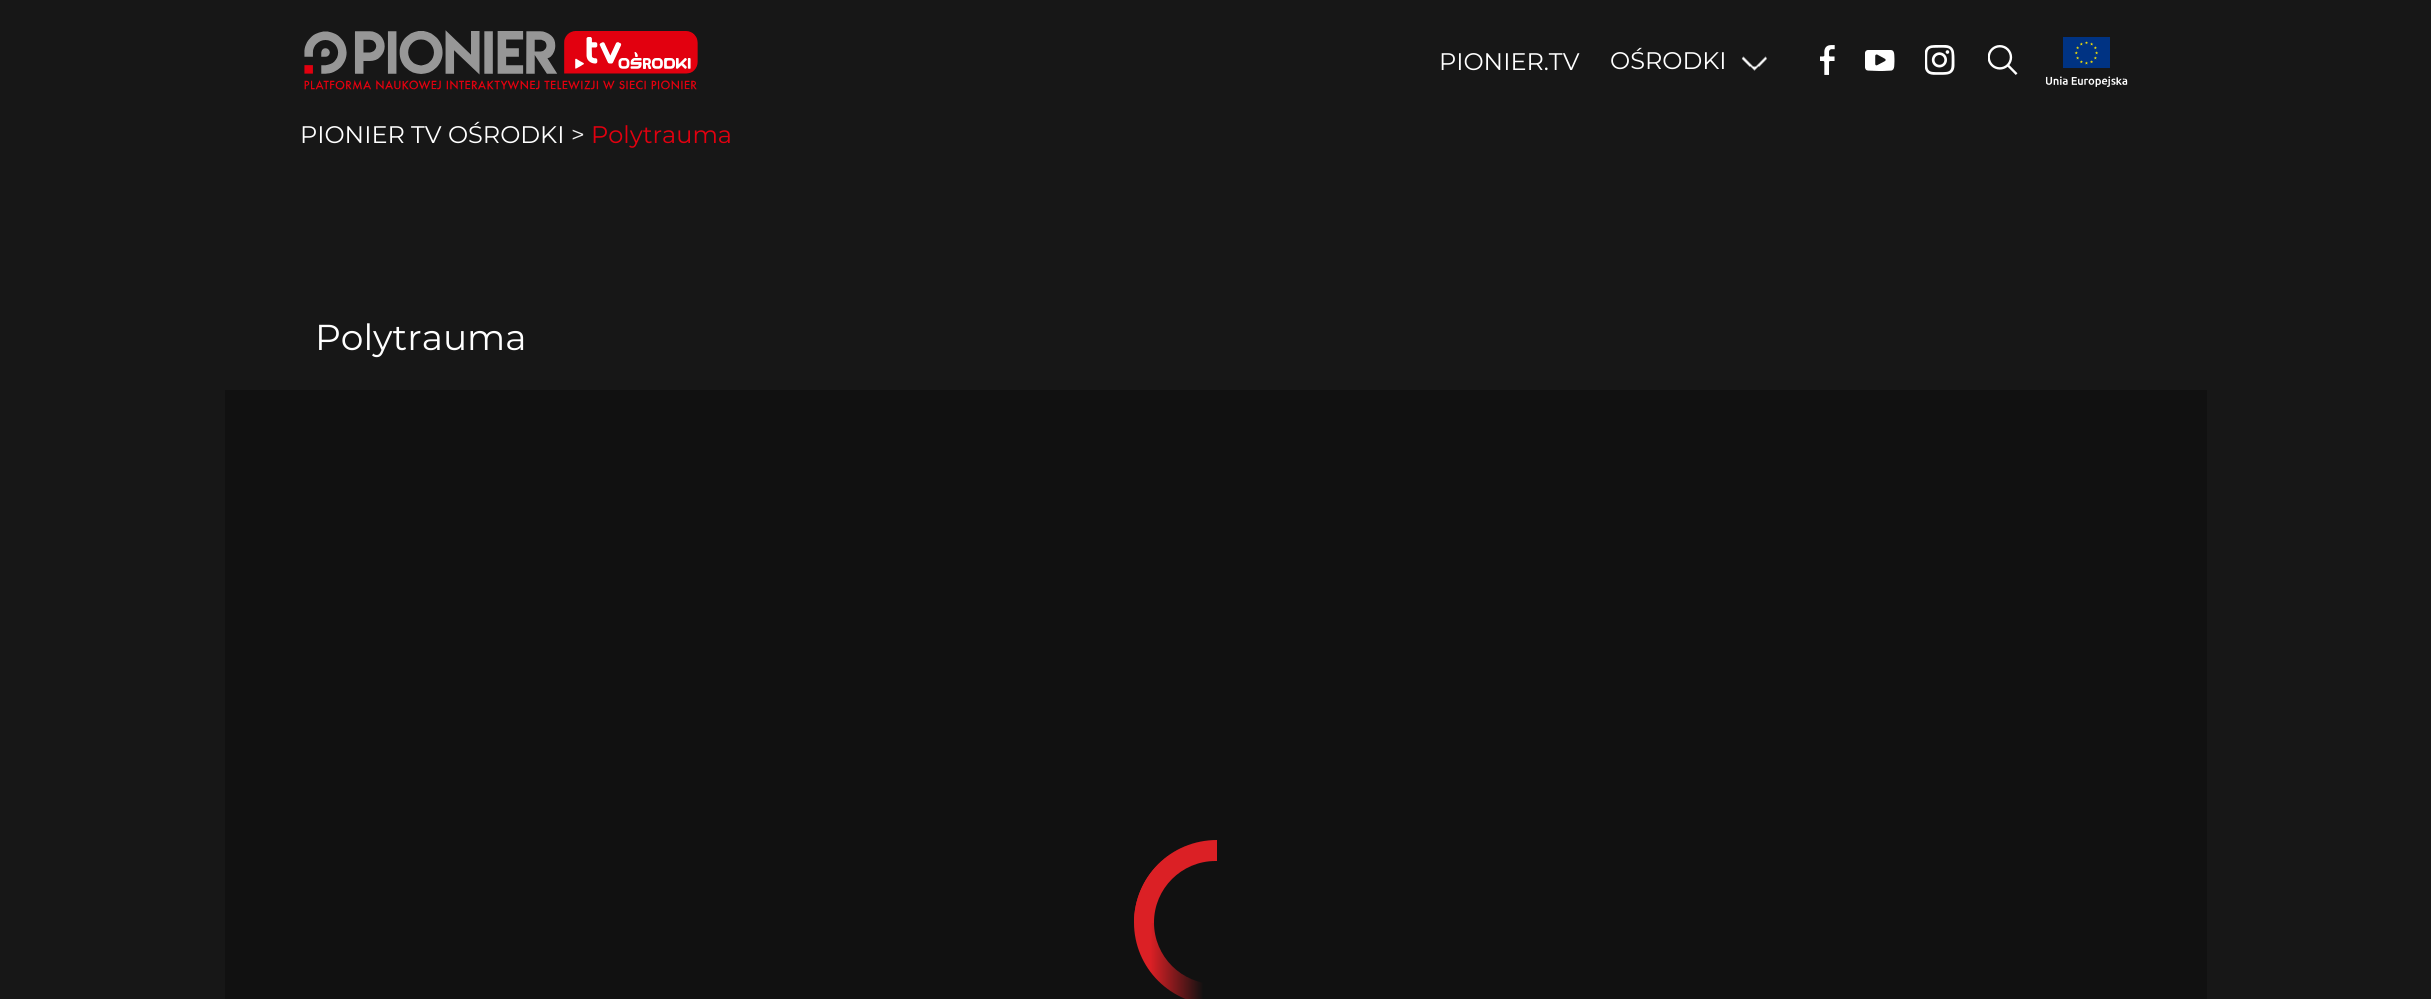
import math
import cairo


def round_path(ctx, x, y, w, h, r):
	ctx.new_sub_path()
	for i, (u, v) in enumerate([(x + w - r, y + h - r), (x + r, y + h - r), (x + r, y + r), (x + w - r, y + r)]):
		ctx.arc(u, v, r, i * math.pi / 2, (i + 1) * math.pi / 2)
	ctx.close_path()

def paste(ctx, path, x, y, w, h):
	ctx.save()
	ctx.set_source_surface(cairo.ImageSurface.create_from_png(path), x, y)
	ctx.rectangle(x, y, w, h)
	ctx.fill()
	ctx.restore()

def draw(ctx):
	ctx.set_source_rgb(0.09, 0.09, 0.09)
	ctx.paint()
	paste(ctx, 'media/1.png', 304, 30, 394, 60)
	ctx.select_font_face('Montserrat Thin')
	ctx.set_font_size(24)
	ctx.set_source_rgb(1, 1, 1)
	ctx.move_to(1439, 70)
	ctx.show_text('PIONIER.TV')
	ctx.move_to(1610, 69)
	ctx.show_text('OŚRODKI')
	paste(ctx, 'media/2.png', 1741, 56, 26, 15)
	paste(ctx, 'media/3.png', 1820, 45, 15, 30)
	paste(ctx, 'media/4.png', 1865, 50, 30, 21)
	paste(ctx, 'media/5.png', 1925, 45, 30, 30)
	paste(ctx, 'media/6.png', 1988, 45, 30, 30)
	paste(ctx, 'media/7.png', 2045, 37, 83, 50)
	ctx.move_to(300, 143)
	ctx.show_text('PIONIER TV OŚRODKI')
	ctx.set_source_rgb(0.933, 0.933, 0.933)
	ctx.move_to(571, 143)
	ctx.show_text('>')
	ctx.set_source_rgb(0.886, 0, 0.059)
	ctx.move_to(591, 143)
	ctx.show_text('Polytrauma')
	ctx.set_font_size(36)
	ctx.set_source_rgb(1, 1, 1)
	ctx.move_to(315, 350)
	ctx.show_text('Polytrauma')
	ctx.set_source_rgb(0.067, 0.067, 0.067)
	ctx.rectangle(225, 390, 1982, 609)
	ctx.fill()
	gradient = cairo.LinearGradient(1134, 923, 1299, 923)
	gradient.add_color_stop_rgba(0.1, 0.859, 0.125, 0.145, 1)
	gradient.add_color_stop_rgba(0.42, 0.067, 0.067, 0.067, 1)
	ctx.set_source(gradient)
	ctx.arc(1216.5, 922.5, 82.5, 0, 2 * math.pi)
	ctx.fill()
	ctx.set_source_rgb(0.859, 0.125, 0.145)
	ctx.new_path()
	ctx.move_to(1217, 840)
	ctx.line_to(1217, 923)
	ctx.line_to(1134, 923)
	ctx.curve_to(1134, 877, 1171, 840, 1217, 840)
	ctx.close_path()
	ctx.fill()
	ctx.set_source_rgb(0.067, 0.067, 0.067)
	round_path(ctx, 1154, 861, 124, 123, 61.5)
	ctx.fill()


surface = cairo.ImageSurface(cairo.FORMAT_RGB24, 2431, 999)
ctx = cairo.Context(surface)
options = cairo.FontOptions()
options.set_hint_metrics(cairo.HINT_METRICS_OFF)
options.set_hint_style(cairo.HINT_STYLE_NONE)
ctx.set_font_options(options)
ctx.set_miter_limit(4)
draw(ctx)
surface.write_to_png('image.png')
